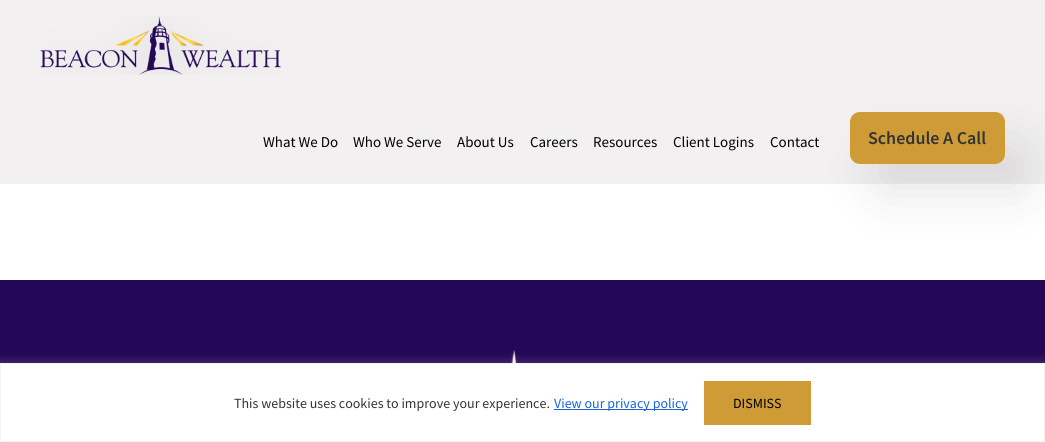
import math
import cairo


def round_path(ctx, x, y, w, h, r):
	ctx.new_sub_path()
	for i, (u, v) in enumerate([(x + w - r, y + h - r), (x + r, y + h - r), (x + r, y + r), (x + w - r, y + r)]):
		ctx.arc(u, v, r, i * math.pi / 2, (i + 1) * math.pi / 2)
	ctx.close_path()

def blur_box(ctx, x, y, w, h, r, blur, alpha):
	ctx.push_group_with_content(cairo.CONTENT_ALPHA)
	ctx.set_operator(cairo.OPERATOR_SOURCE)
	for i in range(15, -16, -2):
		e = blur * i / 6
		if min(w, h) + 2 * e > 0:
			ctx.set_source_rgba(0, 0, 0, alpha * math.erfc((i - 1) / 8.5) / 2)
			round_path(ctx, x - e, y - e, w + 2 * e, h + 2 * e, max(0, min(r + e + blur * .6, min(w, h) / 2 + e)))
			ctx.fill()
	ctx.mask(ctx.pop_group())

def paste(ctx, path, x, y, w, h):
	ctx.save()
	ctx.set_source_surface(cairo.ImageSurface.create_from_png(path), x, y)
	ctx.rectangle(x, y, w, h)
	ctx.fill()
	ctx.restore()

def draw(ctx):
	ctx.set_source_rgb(1, 1, 1)
	ctx.paint()
	ctx.set_source_rgb(0.949, 0.941, 0.941)
	ctx.rectangle(0, 0, 1045, 184)
	ctx.fill()
	paste(ctx, 'media/1.png', 40, 16, 241, 59)
	ctx.select_font_face('Source Sans Pro')
	ctx.set_font_size(15)
	ctx.set_source_rgb(0, 0, 0)
	for x, y, s in [
		(263, 147, 'What We Do'),
		(353, 147, 'Who We Serve'),
		(457, 147, 'About Us'),
		(530, 147, 'Careers'),
		(593, 147, 'Resources'),
		(673, 147, 'Client Logins'),
		(770, 147, 'Contact'),
	]:
		ctx.move_to(x, y)
		ctx.show_text(s)
	ctx.set_source_rgb(0, 0, 0)
	blur_box(ctx, 874, 142, 155, 52, 10, 25.5, 0.1)
	ctx.set_source_rgb(0.808, 0.608, 0.216)
	round_path(ctx, 850, 112, 155, 52, 10)
	ctx.fill()
	ctx.select_font_face('Source Sans Pro SemiBold')
	ctx.set_font_size(18)
	ctx.set_source_rgb(0.2, 0.2, 0.2)
	ctx.move_to(868, 144)
	ctx.show_text('Schedule A Call')
	ctx.set_source_rgb(0.145, 0.031, 0.345)
	ctx.rectangle(0, 280, 1045, 83)
	ctx.fill()
	paste(ctx, 'media/2.png', 511, 350, 6, 13)
	ctx.set_source_rgb(0.675, 0.671, 0.671)
	blur_box(ctx, 0, 362, 1045, 79, 0, 5, 0.3)
	ctx.set_source_rgb(1, 1, 1)
	ctx.rectangle(0.5, 363.5, 1044, 78)
	ctx.fill_preserve()
	ctx.set_source_rgb(0.957, 0.957, 0.957)
	ctx.set_line_width(1)
	ctx.stroke()
	ctx.select_font_face('Source Sans Pro')
	ctx.set_font_size(14)
	ctx.set_source_rgb(0.2, 0.2, 0.2)
	ctx.move_to(234, 408)
	ctx.show_text('This website uses cookies to improve your experience.')
	ctx.set_source_rgb(0.094, 0.388, 0.863)
	ctx.rectangle(554, 409, 134, 1)
	ctx.fill()
	ctx.move_to(554, 408)
	ctx.show_text('View our privacy policy')
	ctx.set_source_rgb(0.808, 0.608, 0.216)
	ctx.rectangle(704, 381, 107, 44)
	ctx.fill()
	ctx.set_source_rgb(0, 0, 0)
	ctx.move_to(733, 408)
	ctx.show_text('DISMISS')


surface = cairo.ImageSurface(cairo.FORMAT_RGB24, 1045, 442)
ctx = cairo.Context(surface)
options = cairo.FontOptions()
options.set_hint_metrics(cairo.HINT_METRICS_OFF)
options.set_hint_style(cairo.HINT_STYLE_NONE)
ctx.set_font_options(options)
ctx.set_miter_limit(4)
draw(ctx)
surface.write_to_png('image.png')
